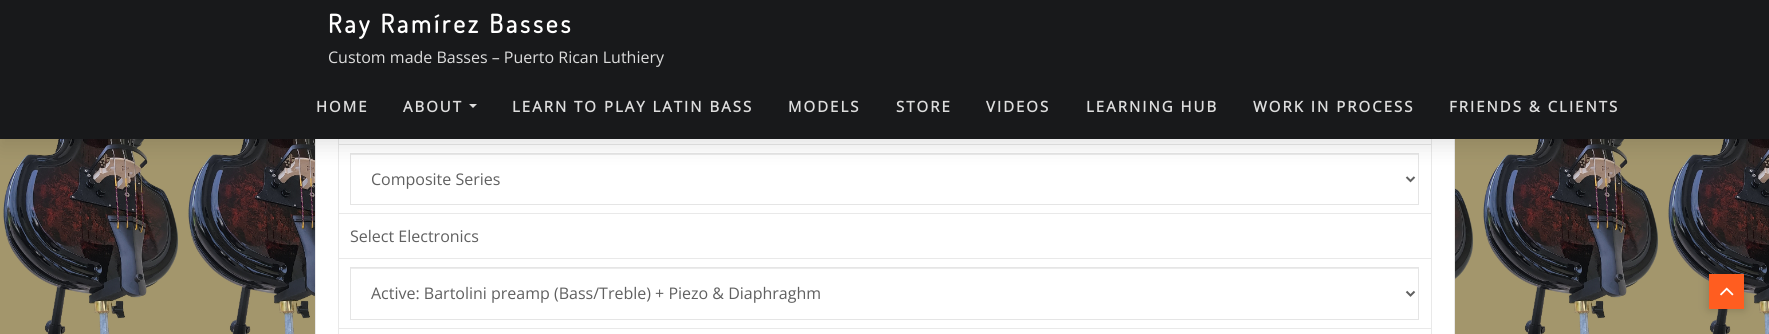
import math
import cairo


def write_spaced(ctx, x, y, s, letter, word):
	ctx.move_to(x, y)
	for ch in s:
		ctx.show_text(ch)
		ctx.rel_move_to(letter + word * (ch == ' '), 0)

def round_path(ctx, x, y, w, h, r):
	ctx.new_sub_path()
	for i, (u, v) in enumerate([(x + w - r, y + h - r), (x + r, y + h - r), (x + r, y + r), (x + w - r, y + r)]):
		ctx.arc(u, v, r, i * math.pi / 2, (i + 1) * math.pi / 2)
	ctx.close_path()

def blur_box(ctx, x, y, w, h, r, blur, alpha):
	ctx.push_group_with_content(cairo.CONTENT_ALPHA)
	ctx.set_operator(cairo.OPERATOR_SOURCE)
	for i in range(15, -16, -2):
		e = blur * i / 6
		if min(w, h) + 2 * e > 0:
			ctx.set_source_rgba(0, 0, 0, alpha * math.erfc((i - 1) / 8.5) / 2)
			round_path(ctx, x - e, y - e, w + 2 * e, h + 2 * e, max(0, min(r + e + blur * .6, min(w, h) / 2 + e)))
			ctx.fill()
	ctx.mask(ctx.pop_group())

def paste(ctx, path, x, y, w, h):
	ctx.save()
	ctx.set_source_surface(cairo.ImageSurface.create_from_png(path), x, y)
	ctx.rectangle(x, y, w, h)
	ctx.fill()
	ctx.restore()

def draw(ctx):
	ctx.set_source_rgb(1, 1, 1)
	ctx.paint()
	paste(ctx, 'media/1.png', 0, 139, 1769, 195)
	ctx.set_source_rgb(1, 1, 1)
	ctx.rectangle(316, 139, 1138, 195)
	ctx.fill()
	ctx.rectangle(315.5, -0.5, 1139, 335)
	ctx.set_source_rgb(0.914, 0.914, 0.914)
	ctx.set_line_width(1)
	ctx.stroke()
	ctx.rectangle(1431, 139, 1, 195)
	ctx.rectangle(338, 139, 1, 195)
	ctx.rectangle(338, 144, 1094, 1)
	ctx.fill()
	ctx.set_source_rgb(0.925, 0.925, 0.925)
	ctx.rectangle(351, 154, 1067, 1)
	ctx.fill()
	ctx.rectangle(350.5, 153.5, 1068, 51)
	ctx.set_source_rgb(0.898, 0.898, 0.898)
	ctx.stroke()
	ctx.new_path()
	ctx.move_to(1406.5, 177)
	ctx.line_to(1410.5, 181)
	ctx.line_to(1414.5, 177)
	ctx.set_source_rgb(0.376, 0.376, 0.376)
	ctx.set_line_width(2)
	ctx.stroke()
	ctx.set_source_rgb(0, 0, 0)
	blur_box(ctx, 0, 8, 1769, 139, 0, 10, 0.1)
	ctx.set_source_rgb(0.094, 0.098, 0.106)
	ctx.rectangle(0, 0, 1769, 139)
	ctx.fill()
	ctx.select_font_face('Dosis', cairo.FONT_SLANT_NORMAL, cairo.FONT_WEIGHT_BOLD)
	ctx.set_font_size(25.5)
	ctx.set_source_rgb(1, 1, 1)
	write_spaced(ctx, 328, 33, 'Ray Ramírez Basses', 3, 0)
	ctx.select_font_face('Open Sans')
	ctx.set_font_size(16)
	ctx.set_source_rgb(0.867, 0.867, 0.867)
	ctx.move_to(328, 63)
	ctx.show_text('Custom made Basses – Puerto Rican Luthiery')
	ctx.select_font_face('Open Sans', cairo.FONT_SLANT_NORMAL, cairo.FONT_WEIGHT_BOLD)
	ctx.set_font_size(15)
	write_spaced(ctx, 316, 112, 'HOME', 2, 0)
	write_spaced(ctx, 403, 112, 'ABOUT', 2, 0)
	ctx.new_path()
	ctx.move_to(469, 104)
	ctx.line_to(477, 104)
	ctx.line_to(473, 108)
	ctx.close_path()
	ctx.fill()
	for x, y, s in [
		(512, 112, 'LEARN TO PLAY LATIN BASS'),
		(788, 112, 'MODELS'),
		(896, 112, 'STORE'),
		(986, 112, 'VIDEOS'),
		(1086, 112, 'LEARNING HUB'),
		(1253, 112, 'WORK IN PROCESS'),
		(1449, 112, 'FRIENDS & CLIENTS'),
	]:
		write_spaced(ctx, x, y, s, 2, 0)
	ctx.select_font_face('Open Sans')
	ctx.set_font_size(16)
	ctx.set_source_rgb(0.376, 0.376, 0.376)
	ctx.move_to(371, 185)
	ctx.show_text('Composite Series')
	ctx.set_source_rgb(0.914, 0.914, 0.914)
	ctx.rectangle(338, 213, 1094, 1)
	ctx.fill()
	ctx.set_source_rgb(0.376, 0.376, 0.376)
	ctx.move_to(350, 242)
	ctx.show_text('Select Electronics')
	ctx.set_source_rgb(0.914, 0.914, 0.914)
	ctx.rectangle(338, 258, 1094, 1)
	ctx.fill()
	ctx.set_source_rgb(0.925, 0.925, 0.925)
	ctx.rectangle(351, 268, 1067, 1)
	ctx.fill()
	ctx.rectangle(350.5, 267.5, 1068, 52)
	ctx.set_source_rgb(0.898, 0.898, 0.898)
	ctx.set_line_width(1)
	ctx.stroke()
	ctx.new_path()
	ctx.move_to(1406.5, 291.5)
	ctx.line_to(1410.5, 295.5)
	ctx.line_to(1414.5, 291.5)
	ctx.set_source_rgb(0.376, 0.376, 0.376)
	ctx.set_line_width(2)
	ctx.stroke()
	ctx.move_to(371, 299)
	ctx.show_text('Active: Bartolini preamp (Bass/Treble) + Piezo & Diaphraghm')
	ctx.set_source_rgb(0.914, 0.914, 0.914)
	ctx.rectangle(338, 328, 1094, 1)
	ctx.fill()
	ctx.set_source_rgb(0, 0, 0)
	blur_box(ctx, 1709, 274, 35, 35, 0, 5, 0.2)
	ctx.set_source_rgb(1, 0.365, 0.125)
	ctx.rectangle(1709, 274, 35, 35)
	ctx.fill()
	paste(ctx, 'media/2.png', 1720, 287, 14, 9)


surface = cairo.ImageSurface(cairo.FORMAT_RGB24, 1769, 334)
ctx = cairo.Context(surface)
options = cairo.FontOptions()
options.set_hint_metrics(cairo.HINT_METRICS_OFF)
options.set_hint_style(cairo.HINT_STYLE_NONE)
ctx.set_font_options(options)
ctx.set_miter_limit(4)
draw(ctx)
surface.write_to_png('image.png')
